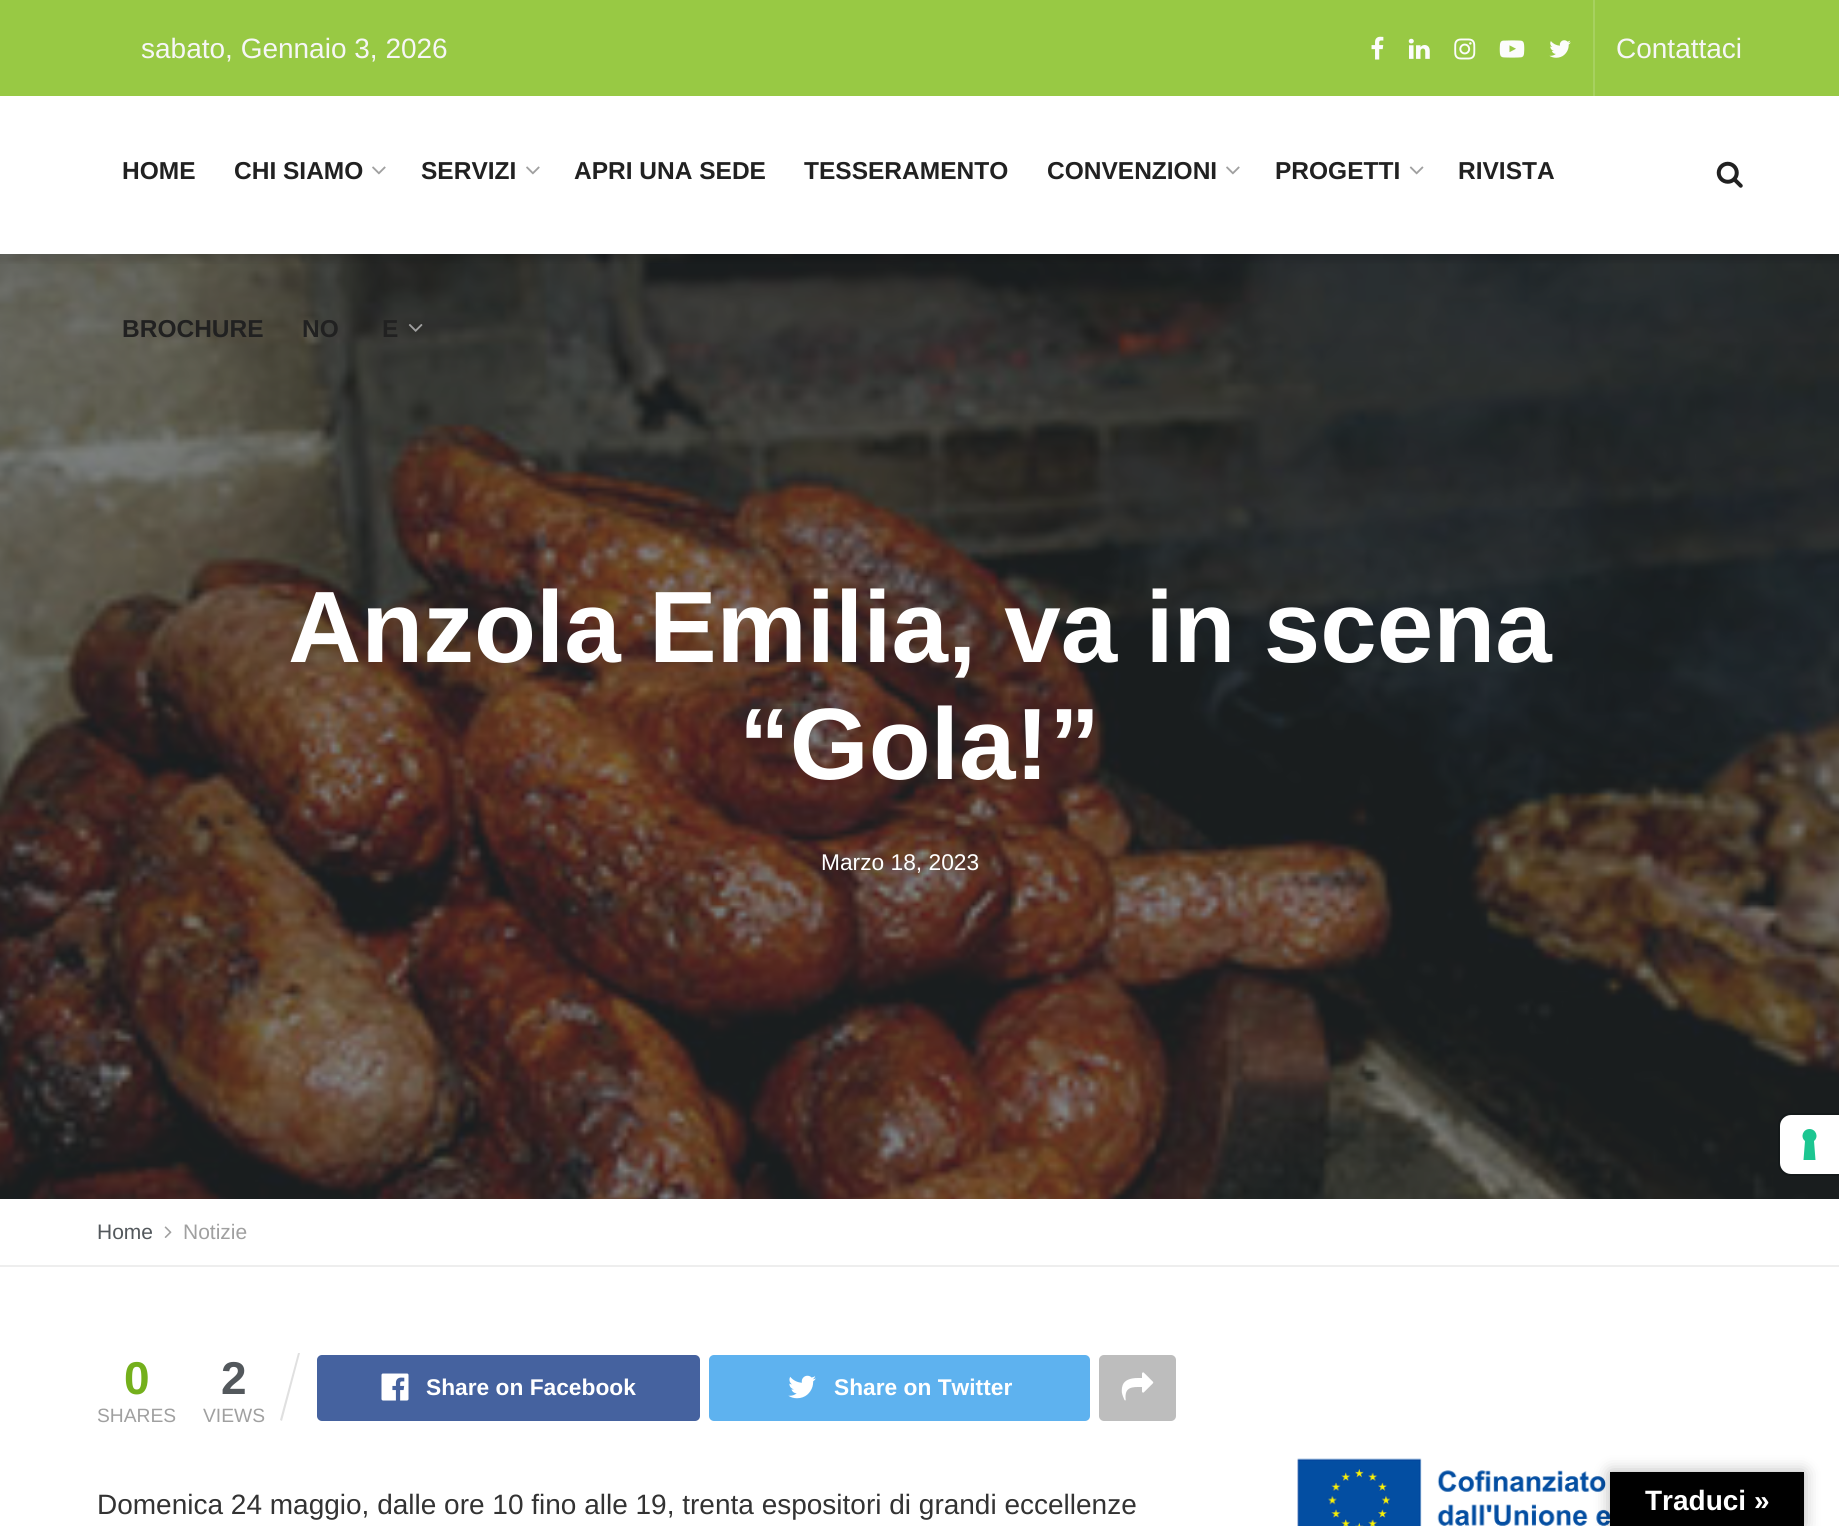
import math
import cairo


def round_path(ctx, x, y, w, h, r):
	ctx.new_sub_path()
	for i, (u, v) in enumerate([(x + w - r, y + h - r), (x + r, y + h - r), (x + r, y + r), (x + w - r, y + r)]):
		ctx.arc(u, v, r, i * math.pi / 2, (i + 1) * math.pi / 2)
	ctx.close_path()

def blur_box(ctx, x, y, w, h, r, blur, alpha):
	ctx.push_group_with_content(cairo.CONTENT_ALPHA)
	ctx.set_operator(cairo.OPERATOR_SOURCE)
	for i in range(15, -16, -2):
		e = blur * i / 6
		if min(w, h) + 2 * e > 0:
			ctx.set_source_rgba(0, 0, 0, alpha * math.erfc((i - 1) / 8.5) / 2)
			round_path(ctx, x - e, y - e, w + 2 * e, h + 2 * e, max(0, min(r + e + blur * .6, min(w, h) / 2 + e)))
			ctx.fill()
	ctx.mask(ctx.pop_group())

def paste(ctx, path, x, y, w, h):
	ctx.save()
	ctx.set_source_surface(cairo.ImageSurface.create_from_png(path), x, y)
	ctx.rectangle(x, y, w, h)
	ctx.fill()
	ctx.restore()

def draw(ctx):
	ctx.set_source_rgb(1, 1, 1)
	ctx.paint()
	ctx.set_source_rgb(0.596, 0.788, 0.267)
	ctx.rectangle(0, 0, 1839, 96)
	ctx.fill()
	ctx.set_source_rgb(0.655, 0.82, 0.376)
	ctx.rectangle(1593, 0, 2, 96)
	ctx.fill()
	ctx.select_font_face('Liberation Sans')
	ctx.set_font_size(28)
	ctx.set_source_rgb(0.961, 0.961, 0.961)
	ctx.move_to(141, 58)
	ctx.show_text('sabato, Gennaio 3, 2026')
	paste(ctx, 'media/1.png', 1371, 36, 13, 24)
	paste(ctx, 'media/2.png', 1408, 38, 22, 21)
	paste(ctx, 'media/3.png', 1454, 38, 22, 22)
	paste(ctx, 'media/4.png', 1499, 40, 26, 18)
	paste(ctx, 'media/5.png', 1549, 40, 22, 18)
	ctx.move_to(1616, 58)
	ctx.show_text('Contattaci')
	ctx.select_font_face('Liberation Sans', cairo.FONT_SLANT_NORMAL, cairo.FONT_WEIGHT_BOLD)
	ctx.set_font_size(24.5)
	ctx.set_source_rgb(0.129, 0.129, 0.129)
	ctx.move_to(122, 179)
	ctx.show_text('HOME')
	ctx.move_to(234, 179)
	ctx.show_text('CHI SIAMO')
	paste(ctx, 'media/6.png', 372, 166, 14, 9)
	ctx.move_to(421, 179)
	ctx.show_text('SERVIZI')
	paste(ctx, 'media/6.png', 526, 166, 14, 9)
	for x, y, s in [
		(574, 179, 'APRI UNA SEDE'),
		(804, 179, 'TESSERAMENTO'),
		(1047, 179, 'CONVENZIONI'),
	]:
		ctx.move_to(x, y)
		ctx.show_text(s)
	paste(ctx, 'media/6.png', 1226, 166, 14, 9)
	ctx.move_to(1275, 179)
	ctx.show_text('PROGETTI')
	paste(ctx, 'media/7.png', 1409, 166, 15, 9)
	ctx.move_to(1458, 179)
	ctx.show_text('RIVISTA')
	ctx.set_source_rgb(0.161, 0.192, 0.196)
	ctx.rectangle(0, 254, 1839, 945)
	ctx.fill()
	paste(ctx, 'media/10.png', 0, 254, 1839, 945)
	ctx.set_source_rgb(0.129, 0.129, 0.129)
	for x, y, s in [
		(122, 337, 'BROCHURE'),
		(302, 337, 'NO'),
		(382, 337, 'E'),
	]:
		ctx.move_to(x, y)
		ctx.show_text(s)
	paste(ctx, 'media/8.png', 408, 324, 15, 8)
	paste(ctx, 'media/9.png', 1716, 161, 27, 27)
	gradient = cairo.LinearGradient(920, 254, 920, 266)
	gradient.add_color_stop_rgba(0, 0, 0, 0, 0.15)
	gradient.add_color_stop_rgba(1, 0, 0, 0, 0)
	ctx.set_source(gradient)
	ctx.rectangle(0, 254, 1839, 10)
	ctx.fill()
	ctx.set_font_size(101.5)
	ctx.set_source_rgb(1, 1, 1)
	ctx.move_to(288, 662)
	ctx.show_text('Anzola Emilia, va in scena')
	ctx.move_to(739, 779)
	ctx.show_text('“Gola!”')
	ctx.select_font_face('Liberation Sans')
	ctx.set_font_size(22.75)
	ctx.move_to(821, 870)
	ctx.show_text('Marzo 18, 2023')
	ctx.set_source_rgb(0.933, 0.933, 0.933)
	ctx.rectangle(0, 1265, 1839, 2)
	ctx.fill()
	ctx.set_font_size(21)
	ctx.set_source_rgb(0.325, 0.345, 0.361)
	ctx.move_to(97, 1239)
	ctx.show_text('Home')
	paste(ctx, 'media/11.png', 164, 1226, 8, 12)
	ctx.set_source_rgb(0.627, 0.627, 0.627)
	ctx.move_to(183, 1239)
	ctx.show_text('Notizie')
	ctx.select_font_face('Liberation Sans', cairo.FONT_SLANT_NORMAL, cairo.FONT_WEIGHT_BOLD)
	ctx.set_font_size(46)
	ctx.set_source_rgb(0.455, 0.69, 0.11)
	ctx.move_to(124, 1394)
	ctx.show_text('0')
	ctx.select_font_face('Liberation Sans')
	ctx.set_font_size(19.25)
	ctx.set_source_rgb(0.627, 0.627, 0.627)
	ctx.move_to(97, 1422)
	ctx.show_text('SHARES')
	ctx.select_font_face('Liberation Sans', cairo.FONT_SLANT_NORMAL, cairo.FONT_WEIGHT_BOLD)
	ctx.set_font_size(46)
	ctx.set_source_rgb(0.325, 0.345, 0.361)
	ctx.move_to(221, 1394)
	ctx.show_text('2')
	ctx.set_source_rgb(0.878, 0.878, 0.878)
	ctx.new_path()
	ctx.move_to(298, 1353)
	ctx.line_to(300, 1353)
	ctx.line_to(282, 1421)
	ctx.line_to(280, 1420)
	ctx.close_path()
	ctx.fill()
	ctx.select_font_face('Liberation Sans')
	ctx.set_font_size(19.25)
	ctx.set_source_rgb(0.627, 0.627, 0.627)
	ctx.move_to(203, 1422)
	ctx.show_text('VIEWS')
	ctx.set_source_rgb(0.271, 0.384, 0.624)
	round_path(ctx, 317, 1355, 383, 66, 5)
	ctx.fill()
	paste(ctx, 'media/12.png', 381, 1373, 28, 28)
	ctx.select_font_face('Liberation Sans', cairo.FONT_SLANT_NORMAL, cairo.FONT_WEIGHT_BOLD)
	ctx.set_font_size(22.75)
	ctx.set_source_rgb(1, 1, 1)
	ctx.move_to(426, 1395)
	ctx.show_text('Share on Facebook')
	ctx.set_source_rgb(0.369, 0.698, 0.937)
	round_path(ctx, 709, 1355, 381, 66, 5)
	ctx.fill()
	paste(ctx, 'media/13.png', 788, 1375, 28, 24)
	ctx.set_source_rgb(1, 1, 1)
	ctx.move_to(834, 1395)
	ctx.show_text('Share on Twitter')
	ctx.set_source_rgb(0.741, 0.741, 0.741)
	round_path(ctx, 1099, 1355, 77, 66, 5)
	ctx.fill()
	paste(ctx, 'media/14.png', 1121, 1372, 33, 29)
	ctx.select_font_face('Liberation Sans')
	ctx.set_font_size(28)
	ctx.set_source_rgb(0.2, 0.2, 0.2)
	ctx.move_to(97, 1514)
	ctx.show_text('Domenica 24 maggio, dalle ore 10 fino alle 19, trenta espositori di grandi eccellenze')
	paste(ctx, 'media/15.png', 1297, 1458, 408, 68)
	ctx.new_path()
	ctx.move_to(1790, 1114)
	ctx.line_to(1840, 1114)
	ctx.line_to(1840, 1175)
	ctx.line_to(1790, 1175)
	ctx.curve_to(1784, 1175, 1779, 1170, 1779, 1164)
	ctx.line_to(1779, 1125)
	ctx.curve_to(1779, 1119, 1784, 1114, 1790, 1114)
	ctx.close_path()
	ctx.set_source_rgb(0.082, 0.098, 0.102)
	ctx.stroke()
	ctx.set_source_rgb(1, 1, 1)
	ctx.new_path()
	ctx.move_to(1791, 1115)
	ctx.line_to(1839, 1115)
	ctx.line_to(1839, 1174)
	ctx.line_to(1791, 1174)
	ctx.curve_to(1785, 1174, 1780, 1169, 1780, 1163)
	ctx.line_to(1780, 1126)
	ctx.curve_to(1780, 1120, 1785, 1115, 1791, 1115)
	ctx.close_path()
	ctx.fill()
	ctx.set_source_rgb(0.11, 0.776, 0.569)
	ctx.set_fill_rule(cairo.FILL_RULE_EVEN_ODD)
	ctx.new_path()
	ctx.move_to(1809.5, 1129)
	ctx.curve_to(1816, 1129, 1819, 1137, 1814, 1141)
	ctx.line_to(1815.5, 1160)
	ctx.line_to(1803.5, 1160)
	ctx.line_to(1805, 1141)
	ctx.curve_to(1800, 1137, 1803, 1129, 1809.5, 1129)
	ctx.close_path()
	ctx.fill()
	ctx.set_source_rgb(0, 0, 0)
	blur_box(ctx, 1610, 1472, 194, 54, 0, 8, 0.3)
	ctx.set_source_rgb(0, 0, 0)
	ctx.rectangle(1610, 1472, 194, 54)
	ctx.fill()
	ctx.select_font_face('Liberation Sans', cairo.FONT_SLANT_NORMAL, cairo.FONT_WEIGHT_BOLD)
	ctx.set_source_rgb(1, 1, 1)
	ctx.move_to(1645, 1510)
	ctx.show_text('Traduci »')


surface = cairo.ImageSurface(cairo.FORMAT_RGB24, 1839, 1526)
ctx = cairo.Context(surface)
options = cairo.FontOptions()
options.set_hint_metrics(cairo.HINT_METRICS_OFF)
options.set_hint_style(cairo.HINT_STYLE_NONE)
ctx.set_font_options(options)
ctx.set_miter_limit(4)
draw(ctx)
surface.write_to_png('image.png')
